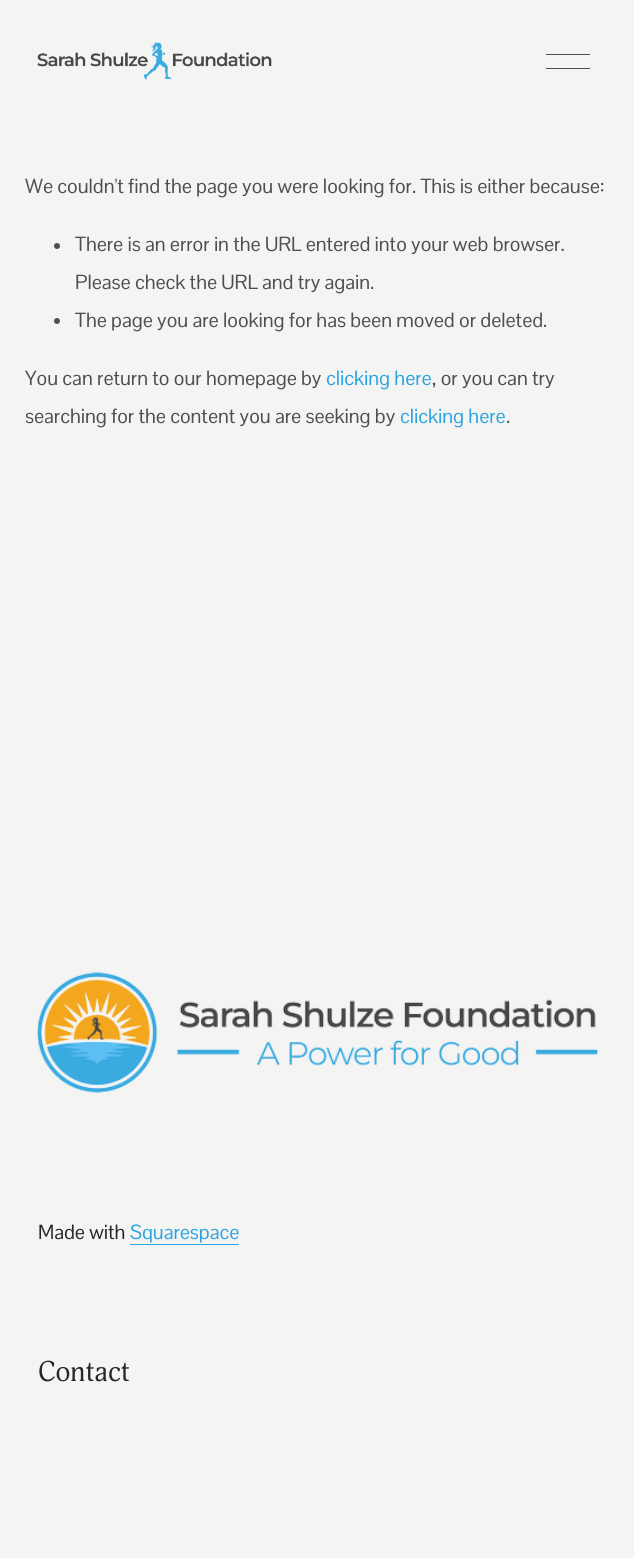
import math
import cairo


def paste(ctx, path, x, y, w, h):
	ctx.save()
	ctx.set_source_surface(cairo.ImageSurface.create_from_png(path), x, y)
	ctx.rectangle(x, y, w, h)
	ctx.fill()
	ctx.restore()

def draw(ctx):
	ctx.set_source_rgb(0.957, 0.957, 0.953)
	ctx.paint()
	paste(ctx, 'media/1.png', 37, 42, 235, 38)
	ctx.set_source_rgb(0.31, 0.31, 0.31)
	ctx.rectangle(546, 54, 44, 1)
	ctx.fill()
	ctx.rectangle(546, 68, 44, 1)
	ctx.fill()
	ctx.select_font_face('Pontano Sans')
	ctx.set_font_size(20)
	ctx.move_to(25, 193)
	ctx.show_text('We couldn\'t find the page you were looking for. This is either because:')
	ctx.new_path()
	ctx.arc(57, 246, 3, 0, 2 * math.pi)
	ctx.fill()
	ctx.move_to(75, 251)
	ctx.show_text('There is an error in the URL entered into your web browser.')
	ctx.move_to(75, 289)
	ctx.show_text('Please check the URL and try again.')
	ctx.new_path()
	ctx.arc(57, 321, 3, 0, 2 * math.pi)
	ctx.fill()
	ctx.move_to(75, 327)
	ctx.show_text('The page you are looking for has been moved or deleted.')
	ctx.move_to(25, 385)
	ctx.show_text('You can return to our homepage by')
	ctx.set_source_rgb(0.165, 0.643, 0.89)
	ctx.move_to(326, 385)
	ctx.show_text('clicking here')
	ctx.set_source_rgb(0.31, 0.31, 0.31)
	ctx.move_to(432, 385)
	ctx.show_text(', or you can try')
	ctx.move_to(25, 423)
	ctx.show_text('searching for the content you are seeking by')
	ctx.set_source_rgb(0.165, 0.643, 0.89)
	ctx.move_to(400, 423)
	ctx.show_text('clicking here')
	ctx.set_source_rgb(0.31, 0.31, 0.31)
	ctx.move_to(506, 423)
	ctx.show_text('.')
	paste(ctx, 'media/2.png', 37, 972, 561, 121)
	ctx.set_source_rgb(0.153, 0.153, 0.153)
	ctx.move_to(38, 1239)
	ctx.show_text('Made with')
	ctx.set_source_rgb(0.165, 0.643, 0.89)
	ctx.move_to(130, 1239)
	ctx.show_text('Squarespace')
	ctx.rectangle(130, 1244, 109, 1)
	ctx.fill()
	ctx.select_font_face('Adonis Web')
	ctx.set_font_size(28)
	ctx.set_source_rgb(0.153, 0.153, 0.153)
	ctx.move_to(38, 1381)
	ctx.show_text('Contact')


surface = cairo.ImageSurface(cairo.FORMAT_RGB24, 634, 1558)
ctx = cairo.Context(surface)
options = cairo.FontOptions()
options.set_hint_metrics(cairo.HINT_METRICS_OFF)
options.set_hint_style(cairo.HINT_STYLE_NONE)
ctx.set_font_options(options)
ctx.set_miter_limit(4)
draw(ctx)
surface.write_to_png('image.png')
